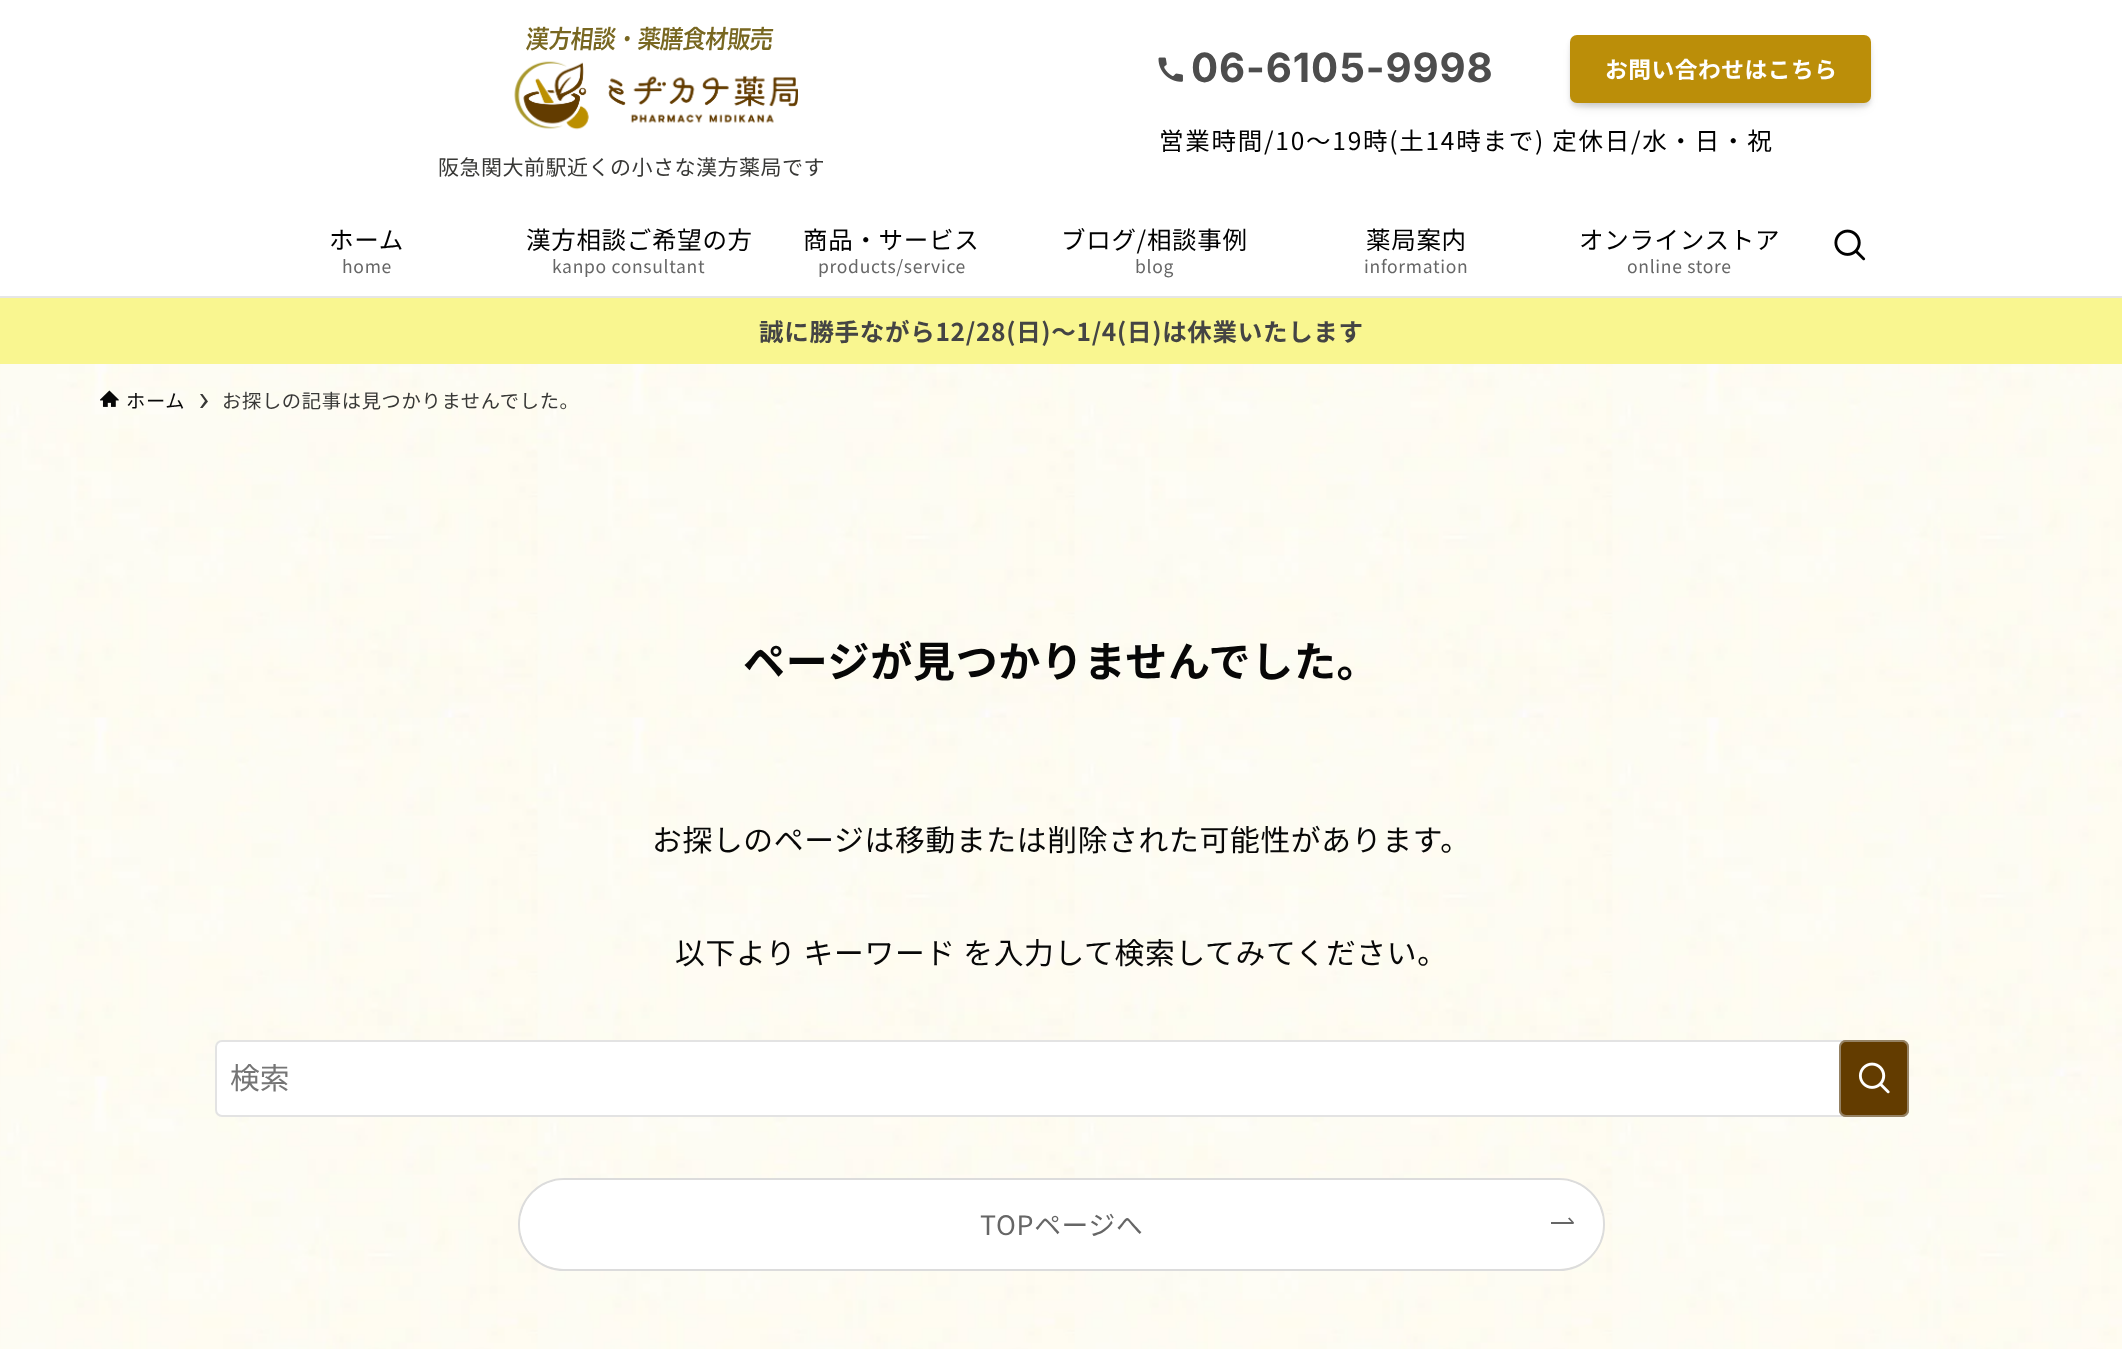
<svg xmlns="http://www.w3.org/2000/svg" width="2122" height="1349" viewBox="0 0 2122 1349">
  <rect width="100%" height="100%" fill="#fff"/>
  <image x="0" y="364" width="2122" height="985" href="img/1.png"/>
  <path d="M0 296h2122v2H0z" fill="#e6e6e6"/>
  <image x="1158" y="57" width="25" height="25" href="img/2.png"/>
  <path d="M1577 49h287v54H1577z" fill="#00000033" filter="blur(7px)"/>
  <rect x="1570" y="39" width="301" height="68" rx="7" fill="#0000001a" filter="blur(2px)"/>
  <rect x="1570" y="35" width="301" height="68" rx="7" fill="#bb8e09"/>
  <image x="514" y="26" width="284" height="104" href="img/3.png"/>
  <image x="1834" y="229" width="32" height="32" href="img/4.png"/>
  <path d="M0 298h2122v66H0z" fill="#f9f690"/>
  <image x="100" y="390" width="19" height="17" href="img/5.png"/>
  <path d="M202.5 394H200L205 401L200 408H202.5L208 401.5Z" fill="#383836"/>
  <rect x="215" y="1040" width="1694" height="77" rx="7" fill="#fff"/>
  <rect x="216" y="1041" width="1692" height="75" rx="6" fill="none" stroke="#c7c7c780" stroke-width="2"/>
  <rect x="1839" y="1040" width="70" height="77" rx="7" fill="#633c00"/>
  <rect x="1840" y="1041" width="68" height="75" rx="6" fill="none" stroke="#c7c7c780" stroke-width="2"/>
  <image x="1858" y="1062" width="32" height="32" href="img/6.png"/>
  <rect x="519" y="1179" width="1085" height="91" rx="45.5" fill="none" stroke="#dcdcdc" stroke-width="2"/>
  <rect x="520" y="1180" width="1083" height="89" rx="44.5" fill="#fff"/>
  <path d="M1573.5 1224H1551V1222H1571.5L1568 1218.5L1569.5 1217.5L1574 1222.5Z" fill="#666"/>
  <text x="1191" y="82" font-family="Inter" font-size="40.25" font-weight="bold" letter-spacing="0.9" fill="#4d4d4d">06-6105-9998</text>
  <text x="1605" y="78" font-family="Noto Sans JP" font-size="22.75" font-weight="bold" letter-spacing="0.5" fill="#fff">お問い合わせはこちら</text>
  <text x="1159" y="150" font-family="Noto Sans JP" font-size="24.5" letter-spacing="1.75" fill="#000">営業時間/10～19時(土14時まで) 定休日/水・日・祝</text>
  <text x="438" y="175" font-family="Noto Sans JP" font-size="21" letter-spacing="0.5" fill="#383836">阪急関大前駅近くの小さな漢方薬局です</text>
  <text x="329" y="249" font-family="Noto Sans JP" font-size="24.5" letter-spacing="0.7" fill="#000">ホーム</text>
  <text x="342" y="273" font-family="Noto Sans JP" font-size="17.5" letter-spacing="0.7" fill="#666">home</text>
  <text x="526" y="249" font-family="Noto Sans JP" font-size="24.5" letter-spacing="0.7" fill="#000">漢方相談ご希望の方</text>
  <text x="552" y="273" font-family="Noto Sans JP" font-size="17.5" letter-spacing="0.7" fill="#666">kanpo consultant</text>
  <text x="803" y="249" font-family="Noto Sans JP" font-size="24.5" letter-spacing="0.7" fill="#000">商品・サービス</text>
  <text x="818" y="273" font-family="Noto Sans JP" font-size="17.5" letter-spacing="0.7" fill="#666">products/service</text>
  <text x="1061" y="249" font-family="Noto Sans JP" font-size="24.5" letter-spacing="0.7" fill="#000">ブログ/相談事例</text>
  <text x="1135" y="273" font-family="Noto Sans JP" font-size="17.5" letter-spacing="0.7" fill="#666">blog</text>
  <text x="1366" y="249" font-family="Noto Sans JP" font-size="24.5" letter-spacing="0.7" fill="#000">薬局案内</text>
  <text x="1364" y="273" font-family="Noto Sans JP" font-size="17.5" letter-spacing="0.7" fill="#666">information</text>
  <text x="1579" y="249" font-family="Noto Sans JP" font-size="24.5" letter-spacing="0.7" fill="#000">オンラインストア</text>
  <text x="1627" y="273" font-family="Noto Sans JP" font-size="17.5" letter-spacing="0.7" fill="#666">online store</text>
  <text x="759" y="341" font-family="Noto Sans JP" font-size="24.5" font-weight="bold" letter-spacing="0.7" fill="#444">誠に勝手ながら12/28(日)～1/4(日)は休業いたします</text>
  <text x="126" y="408" font-family="Noto Sans JP" font-size="19.25" letter-spacing="0.7" fill="#070707">ホーム</text>
  <text x="222" y="408" font-family="Noto Sans JP" font-size="19.25" letter-spacing="0.7" fill="#383836">お探しの記事は見つかりませんでした。</text>
  <text x="743" y="677" font-family="Noto Sans JP" font-size="42" font-weight="bold" letter-spacing="0.7" fill="#070707">ページが見つかりませんでした。</text>
  <g font-family="Noto Sans JP" font-size="29.75" letter-spacing="0.7" fill="#070707">
    <text x="652" y="851">お探しのページは移動または削除された可能性があります。</text>
    <text x="675" y="964">以下より キーワード を入力して検索してみてください。</text>
  </g>
  <text x="230" y="1089" font-family="Noto Sans JP" font-size="29.75" fill="#757575">検索</text>
  <text x="980" y="1235" font-family="Noto Sans JP" font-size="26.75" letter-spacing="0.7" fill="#666">TOPページへ</text>
</svg>
